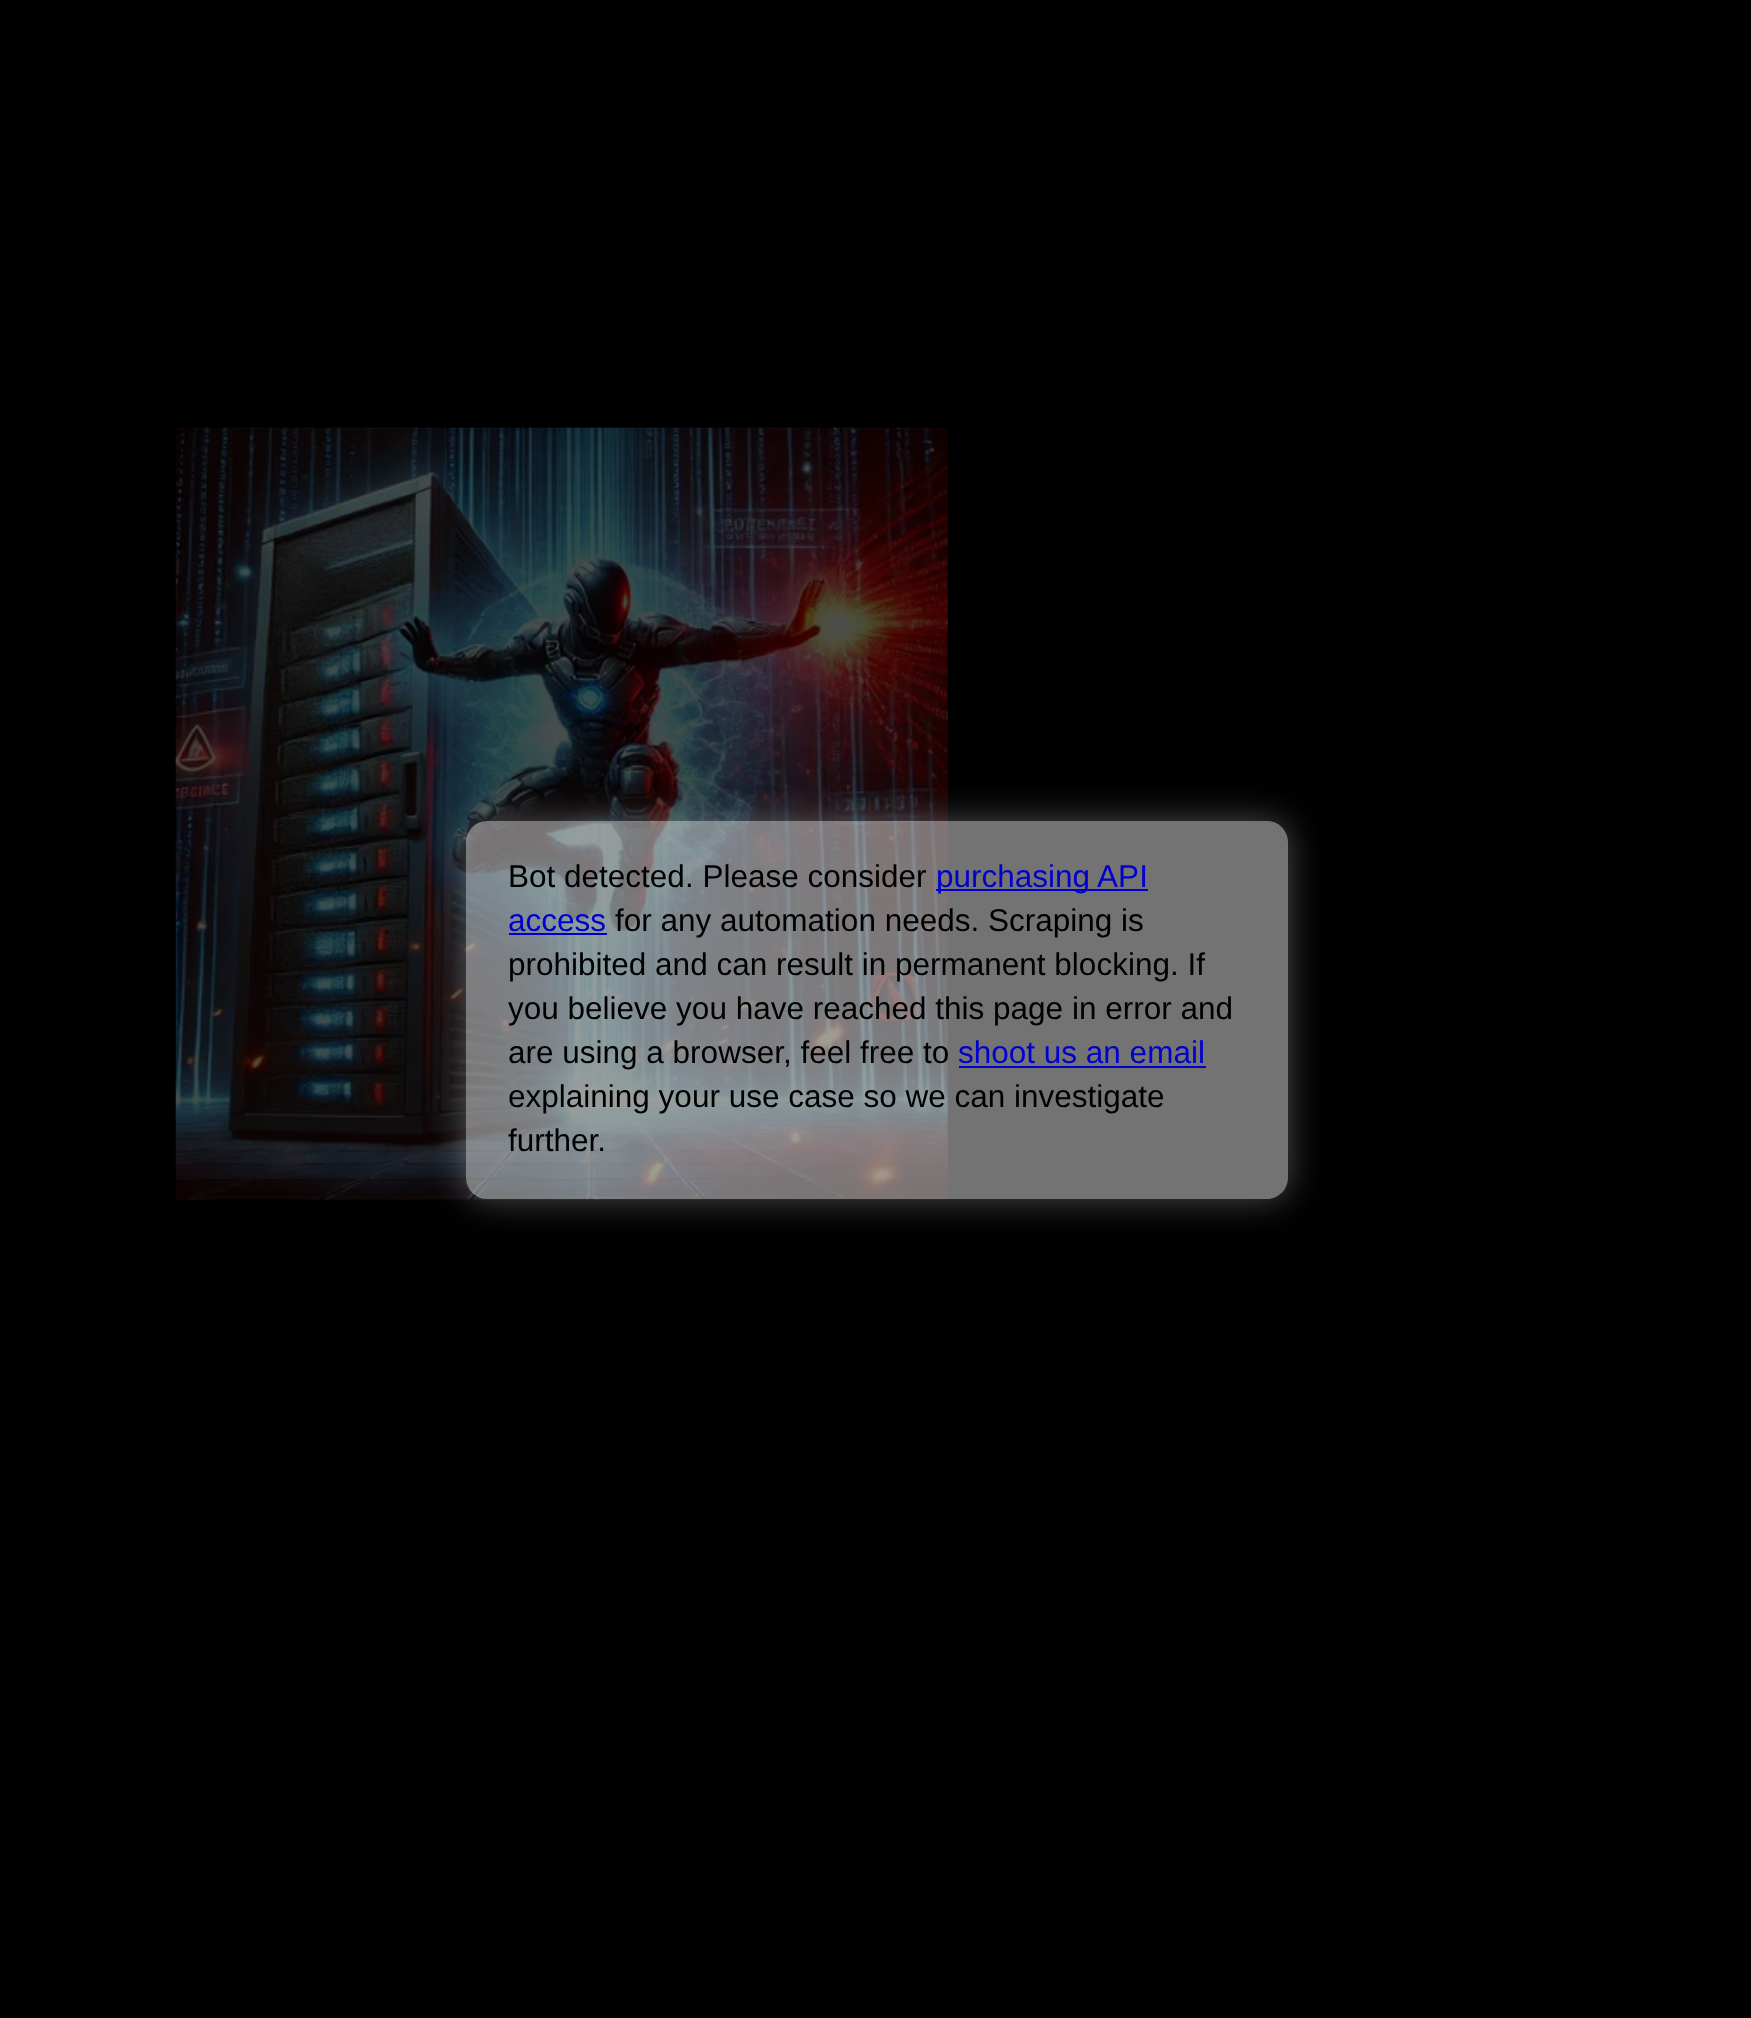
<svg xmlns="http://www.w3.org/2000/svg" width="1751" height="2018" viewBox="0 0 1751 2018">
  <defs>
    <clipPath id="clip1"><path d="M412 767H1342V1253H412ZM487 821H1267C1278.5 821 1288 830.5 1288 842V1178C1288 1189.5 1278.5 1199 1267 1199H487C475.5 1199 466 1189.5 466 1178V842C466 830.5 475.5 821 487 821Z" clip-rule="evenodd"/></clipPath>
  </defs>
  <rect width="100%" height="100%" fill="#000"/>
  <image x="175" y="427" width="773" height="773" href="img/1.png"/>
  <g clip-path="url(#clip1)">
    <rect x="466" y="821" width="822" height="378" rx="21" fill="#ffffff4d" filter="blur(17.5px)"/>
  </g>
  <rect x="466" y="821" width="822" height="378" rx="21" fill="#ffffff73"/>
  <path d="M936 889h212v2H936z" fill="#00c"/>
  <path d="M509 933h98v2H509z" fill="#00c"/>
  <path d="M959 1066h247v2H959z" fill="#00c"/>
  <text x="508" y="887" font-family="Liberation Sans" font-size="31.5" fill="#000">Bot detected. Please consider</text>
  <g font-family="Liberation Sans" font-size="31.5" fill="#00c">
    <text x="936" y="887">purchasing API</text>
    <text x="508" y="931">access</text>
  </g>
  <g font-family="Liberation Sans" font-size="31.5" fill="#000">
    <text x="615" y="931">for any automation needs. Scraping is</text>
    <text x="508" y="975">prohibited and can result in permanent blocking. If</text>
    <text x="508" y="1019">you believe you have reached this page in error and</text>
    <text x="508" y="1063">are using a browser, feel free to</text>
  </g>
  <text x="958" y="1063" font-family="Liberation Sans" font-size="31.5" fill="#00c">shoot us an email</text>
  <g font-family="Liberation Sans" font-size="31.5" fill="#000">
    <text x="508" y="1107">explaining your use case so we can investigate</text>
    <text x="508" y="1151">further.</text>
  </g>
</svg>
